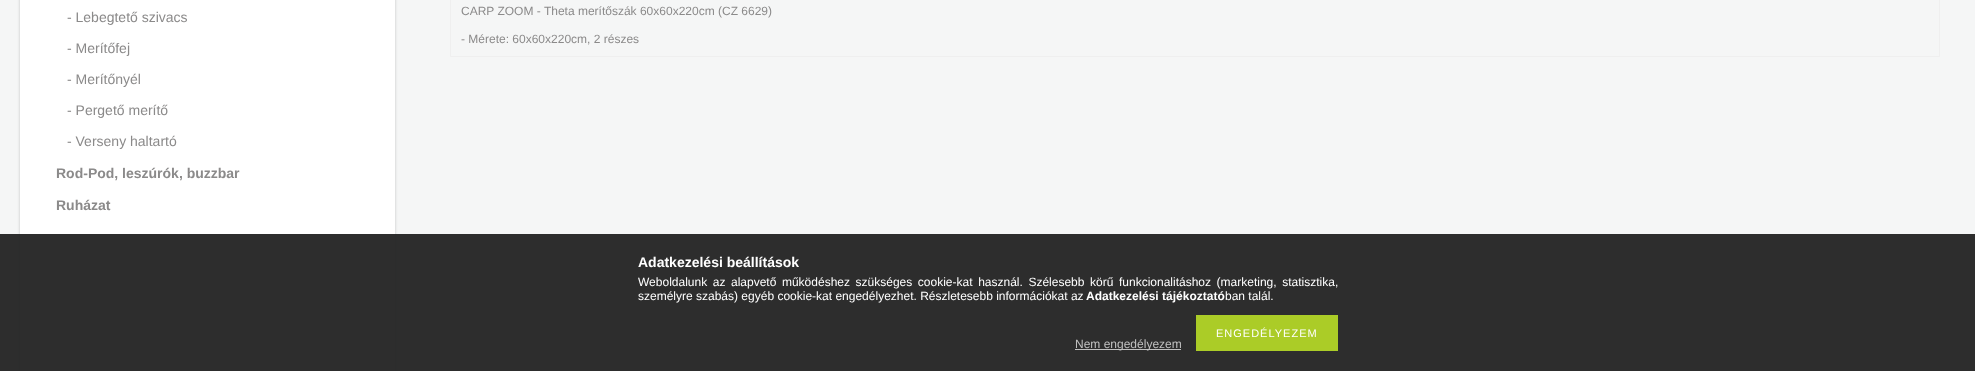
<svg xmlns="http://www.w3.org/2000/svg" width="1975" height="371" viewBox="0 0 1975 371">
  <rect width="100%" height="100%" fill="#f5f6f6"/>
  <path d="M20 -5h375v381H20z" fill="#00000033" filter="blur(1.5px)"/>
  <path d="M20 0h375v371H20z" fill="#fff"/>
  <path d="M450.5 -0.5h1489v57H450.5z" fill="none" stroke="#efefef"/>
  <path d="M0 234h1975v137H0z" fill="#222222f2"/>
  <path d="M1196 315h142v36H1196z" fill="#abcc27"/>
  <path d="M1075 349h106v1H1075z" fill="#c0c0c0"/>
  <g font-family="Liberation Sans" font-size="14" fill="#8b8a8a">
    <text x="67" y="22">- Lebegtető szivacs</text>
    <text x="67" y="53">- Merítőfej</text>
    <text x="67" y="84">- Merítőnyél</text>
    <text x="67" y="115">- Pergető merítő</text>
    <text x="67" y="146">- Verseny haltartó</text>
  </g>
  <g font-family="Liberation Sans" font-size="14" font-weight="bold" fill="#8b8a8a">
    <text x="56" y="178">Rod-Pod, leszúrók, buzzbar</text>
    <text x="56" y="210">Ruházat</text>
  </g>
  <g font-family="Liberation Sans" font-size="12" fill="#8b8a8a">
    <text x="461" y="15">CARP ZOOM - Theta merítőszák 60x60x220cm (CZ 6629)</text>
    <text x="461" y="43">- Mérete: 60x60x220cm, 2 részes</text>
  </g>
  <text x="638" y="267" font-family="Liberation Sans" font-size="14" font-weight="bold" fill="#fff">Adatkezelési beállítások</text>
  <g font-family="Liberation Sans" font-size="12" fill="#fff">
    <text x="638" y="286" word-spacing="2.25">Weboldalunk az alapvető működéshez szükséges cookie-kat használ. Szélesebb körű funkcionalitáshoz (marketing, statisztika,</text>
    <text x="638" y="300">személyre szabás) egyéb cookie-kat engedélyezhet. Részletesebb információkat az</text>
  </g>
  <text x="1086" y="300" font-family="Liberation Sans" font-size="12" font-weight="bold" fill="#fff">Adatkezelési tájékoztató</text>
  <text x="1225" y="300" font-family="Liberation Sans" font-size="12" fill="#fff">ban talál.</text>
  <text x="1216" y="337" font-family="Liberation Sans" font-size="11" letter-spacing="1" fill="#fff">ENGEDÉLYEZEM</text>
  <text x="1075" y="348" font-family="Liberation Sans" font-size="12" fill="#c0c0c0">Nem engedélyezem</text>
</svg>
